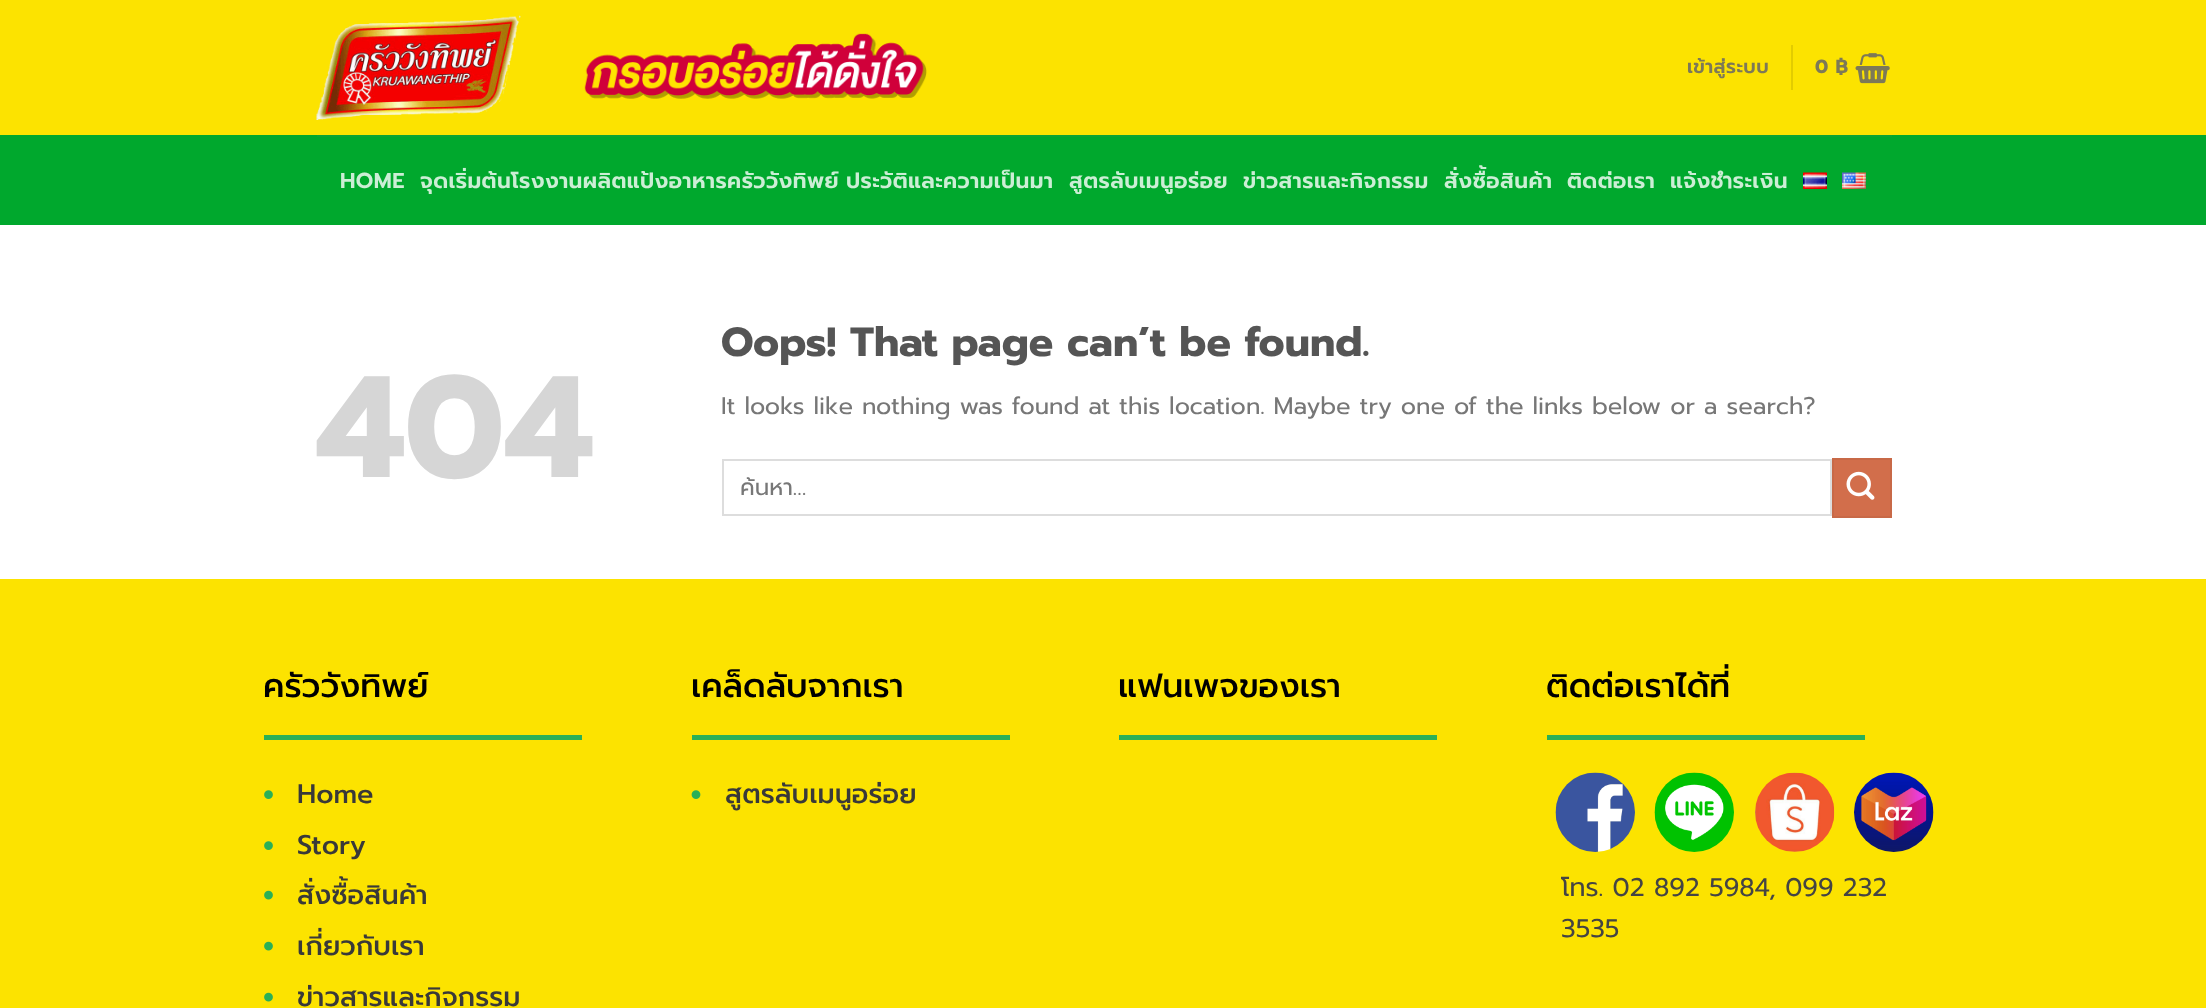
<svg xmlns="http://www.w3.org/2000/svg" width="2206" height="1008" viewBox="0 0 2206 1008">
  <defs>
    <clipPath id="clip1"><path d="M740 470h1066v36H740z"/></clipPath>
  </defs>
  <rect width="100%" height="100%" fill="#fff"/>
  <path d="M0 0h2206v135H0z" fill="#fce300"/>
  <image x="316" y="15" width="205" height="105" href="img/1.png"/>
  <image x="584" y="33" width="343" height="66" href="img/2.png"/>
  <path d="M1791 45h2v45H1791z" fill="#e3cc00"/>
  <image x="1855" y="53" width="35" height="31" href="img/3.png"/>
  <path d="M0 135h2206v90H0z" fill="#00a82d"/>
  <path d="M317 135h1575v2H317z" fill="#0ca334"/>
  <image x="1803" y="172" width="24" height="17" href="img/4.png"/>
  <image x="1842" y="172" width="24" height="17" href="img/5.png"/>
  <path d="M723 460h1108v55H723z" fill="none" stroke="#ddd" stroke-width="2"/>
  <path d="M1833 459h58v58H1833z" fill="#d26e4b" stroke="#c86947" stroke-width="2"/>
  <image x="1846" y="471" width="29" height="29" href="img/6.png"/>
  <path d="M0 579h2206v429H0z" fill="#fce300"/>
  <path d="M264 735h318v5H264z" fill="#2ab057"/>
  <image x="264" y="790" width="9" height="9" href="img/7.png"/>
  <image x="264" y="841" width="9" height="9" href="img/7.png"/>
  <image x="264" y="890" width="9" height="10" href="img/8.png"/>
  <image x="264" y="941" width="9" height="10" href="img/8.png"/>
  <image x="264" y="992" width="9" height="10" href="img/8.png"/>
  <path d="M692 735h318v5H692z" fill="#2ab057"/>
  <image x="691" y="790" width="10" height="9" href="img/9.png"/>
  <path d="M1119 735h318v5H1119z" fill="#2ab057"/>
  <path d="M1547 735h318v5H1547z" fill="#2ab057"/>
  <image x="1555" y="772" width="80" height="80" href="img/10.png"/>
  <image x="1654" y="772" width="80" height="80" href="img/11.png"/>
  <image x="1755" y="772" width="80" height="80" href="img/12.png"/>
  <image x="1854" y="772" width="80" height="80" href="img/13.png"/>
  <text x="1687" y="73" font-family="Prompt" font-size="19" font-weight="600" letter-spacing="0.4" fill="#7d7957">เข้าสู่ระบบ</text>
  <text x="1815" y="73" font-family="Prompt" font-size="19" font-weight="bold" letter-spacing="0.4" fill="#7d7957">0 ฿</text>
  <g font-family="Prompt" font-size="21.6" font-weight="600" letter-spacing="0.43" fill="#cceed5">
    <text x="340" y="188">HOME</text>
    <text x="420" y="188" word-spacing="-1">จุดเริ่มต้นโรงงานผลิตแป้งอาหารครัววังทิพย์ ประวัติและความเป็นมา</text>
    <text x="1069" y="188">สูตรลับเมนูอร่อย</text>
    <text x="1243" y="188">ข่าวสารและกิจกรรม</text>
    <text x="1444" y="188">สั่งซื้อสินค้า</text>
    <text x="1567" y="188">ติดต่อเรา</text>
    <text x="1670" y="188">แจ้งชำระเงิน</text>
  </g>
  <text x="316" y="477" font-family="Prompt" font-size="144" font-weight="bold" fill="#d6d6d6">404</text>
  <text x="721" y="356" font-family="Prompt" font-size="40.75" font-weight="bold" fill="#555">Oops! That page can’t be found.</text>
  <text x="721" y="414" font-family="Prompt" font-size="24" fill="#777">It looks like nothing was found at this location. Maybe try one of the links below or a search?</text>
  <g clip-path="url(#clip1)">
    <text x="740" y="495" font-family="Prompt" font-size="23" fill="#777">ค้นหา…</text>
  </g>
  <text x="263" y="697" font-family="Prompt" font-size="33" font-weight="500" fill="#000">ครัววังทิพย์</text>
  <g font-family="Prompt" font-size="27" font-weight="500" fill="#393939">
    <text x="297" y="803">Home</text>
    <text x="297" y="854">Story</text>
    <text x="297" y="904">สั่งซื้อสินค้า</text>
    <text x="297" y="955">เกี่ยวกับเรา</text>
    <text x="297" y="1006">ข่าวสารและกิจกรรม</text>
  </g>
  <text x="691" y="697" font-family="Prompt" font-size="33" font-weight="500" fill="#000">เคล็ดลับจากเรา</text>
  <text x="725" y="803" font-family="Prompt" font-size="27" font-weight="500" fill="#393939">สูตรลับเมนูอร่อย</text>
  <g font-family="Prompt" font-size="33" font-weight="500" fill="#000">
    <text x="1118" y="697">แฟนเพจของเรา</text>
    <text x="1546" y="697">ติดต่อเราได้ที่</text>
  </g>
  <g font-family="Prompt" font-size="25.5" fill="#444">
    <text x="1561" y="896">โทร. 02 892 5984, 099 232</text>
    <text x="1561" y="937">3535</text>
  </g>
</svg>
